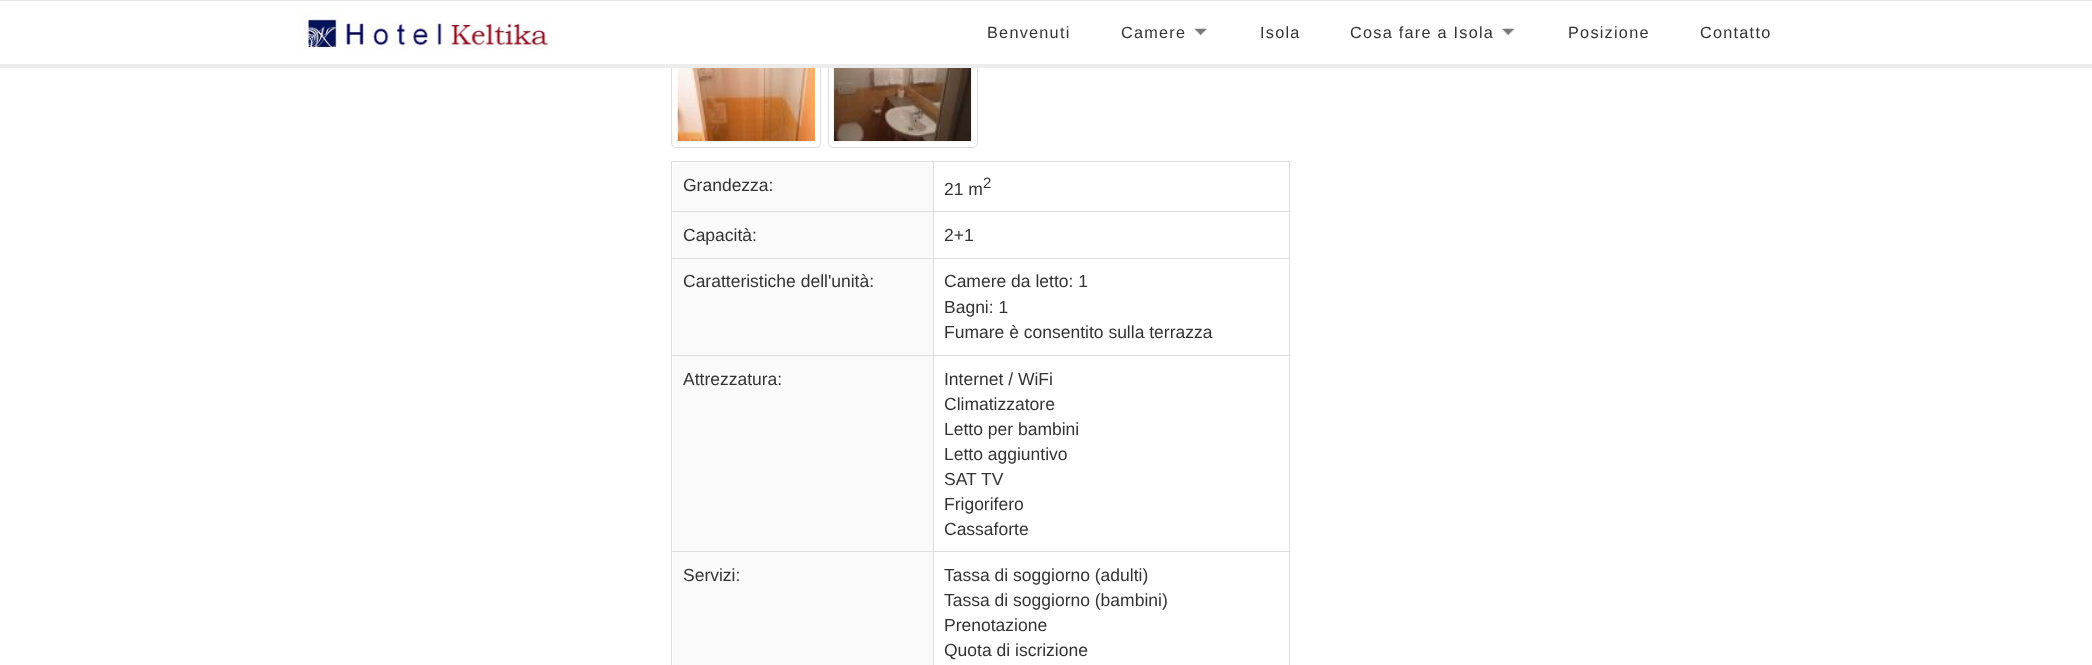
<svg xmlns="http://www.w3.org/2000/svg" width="2092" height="665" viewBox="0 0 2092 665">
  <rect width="100%" height="100%" fill="#fff"/>
  <rect x="671.5" y="41.5" width="149" height="106" rx="4.5" fill="none" stroke="#ddd"/>
  <rect x="828.5" y="41.5" width="149" height="106" rx="4.5" fill="none" stroke="#ddd"/>
  <path d="M671 41h307v23H671z" fill="#fff"/>
  <path d="M0 0h2092v1H0z" fill="#e5e5e5"/>
  <path d="M0 64h2092v4H0z" fill="#ececec"/>
  <image x="297" y="8" width="253" height="42" href="img/1.png"/>
  <image x="1194" y="28" width="13" height="8" href="img/2.png"/>
  <image x="1501" y="28" width="14" height="8" href="img/3.png"/>
  <image x="677" y="68" width="138" height="74" href="img/4.png"/>
  <image x="833" y="68" width="139" height="74" href="img/5.png"/>
  <path d="M673 163h260v48H673z" fill="#fafafa"/>
  <path d="M933 161h357v1H933z" fill="#ddd"/>
  <path d="M933 211h357v1H933z" fill="#ddd"/>
  <path d="M933 258h357v1H933z" fill="#ddd"/>
  <path d="M933 355h357v1H933z" fill="#ddd"/>
  <path d="M933 551h357v1H933z" fill="#ddd"/>
  <path d="M933 551h1v114H933z" fill="#ddd"/>
  <path d="M671 551h263v1H671z" fill="#ddd"/>
  <path d="M933 355h1v198H933z" fill="#ddd"/>
  <path d="M671 355h263v1H671z" fill="#ddd"/>
  <path d="M933 258h1v98H933z" fill="#ddd"/>
  <path d="M671 258h263v1H671z" fill="#ddd"/>
  <path d="M933 211h1v48H933z" fill="#ddd"/>
  <path d="M671 211h263v1H671z" fill="#ddd"/>
  <path d="M933 161h1v52H933z" fill="#ddd"/>
  <path d="M671 161h263v1H671z" fill="#ddd"/>
  <path d="M671 551h1v114H671z" fill="#ddd"/>
  <path d="M671 355h1v198H671z" fill="#ddd"/>
  <path d="M671 258h1v98H671z" fill="#ddd"/>
  <path d="M671 211h1v48H671z" fill="#ddd"/>
  <path d="M671 161h1v52H671z" fill="#ddd"/>
  <path d="M1289 551h1v114H1289z" fill="#ddd"/>
  <path d="M1289 355h1v198H1289z" fill="#ddd"/>
  <path d="M1289 258h1v98H1289z" fill="#ddd"/>
  <path d="M1289 211h1v48H1289z" fill="#ddd"/>
  <path d="M1289 161h1v52H1289z" fill="#ddd"/>
  <path d="M673 212h260v46H673z" fill="#fafafa"/>
  <path d="M673 259h260v96H673z" fill="#fafafa"/>
  <path d="M673 356h260v195H673z" fill="#fafafa"/>
  <path d="M673 552h260v113H673z" fill="#fafafa"/>
  <g font-family="Liberation Sans" font-size="16.25" letter-spacing="1.25" fill="#333">
    <text x="987" y="38">Benvenuti</text>
    <text x="1121" y="38">Camere</text>
    <text x="1260" y="38">Isola</text>
    <text x="1350" y="38">Cosa fare a Isola</text>
    <text x="1568" y="38">Posizione</text>
    <text x="1700" y="38">Contatto</text>
  </g>
  <g font-family="Liberation Sans" font-size="17.5" fill="#333">
    <text x="683" y="191">Grandezza:</text>
    <text x="944" y="195">21 m</text>
  </g>
  <text x="983" y="188" font-family="Liberation Sans" font-size="15" fill="#333">2</text>
  <g font-family="Liberation Sans" font-size="17.5" fill="#333">
    <text x="683" y="241">Capacità:</text>
    <text x="944" y="241">2+1</text>
    <text x="683" y="287">Caratteristiche dell'unità:</text>
    <text x="944" y="287">Camere da letto: 1</text>
    <text x="944" y="313">Bagni: 1</text>
    <text x="944" y="338">Fumare è consentito sulla terrazza</text>
    <text x="683" y="385">Attrezzatura:</text>
    <text x="944" y="385">Internet / WiFi</text>
    <text x="944" y="410">Climatizzatore</text>
    <text x="944" y="435">Letto per bambini</text>
    <text x="944" y="460">Letto aggiuntivo</text>
    <text x="944" y="485">SAT TV</text>
    <text x="944" y="510">Frigorifero</text>
    <text x="944" y="535">Cassaforte</text>
    <text x="683" y="581">Servizi:</text>
    <text x="944" y="581">Tassa di soggiorno (adulti)</text>
    <text x="944" y="606">Tassa di soggiorno (bambini)</text>
    <text x="944" y="631">Prenotazione</text>
    <text x="944" y="656">Quota di iscrizione</text>
  </g>
</svg>
